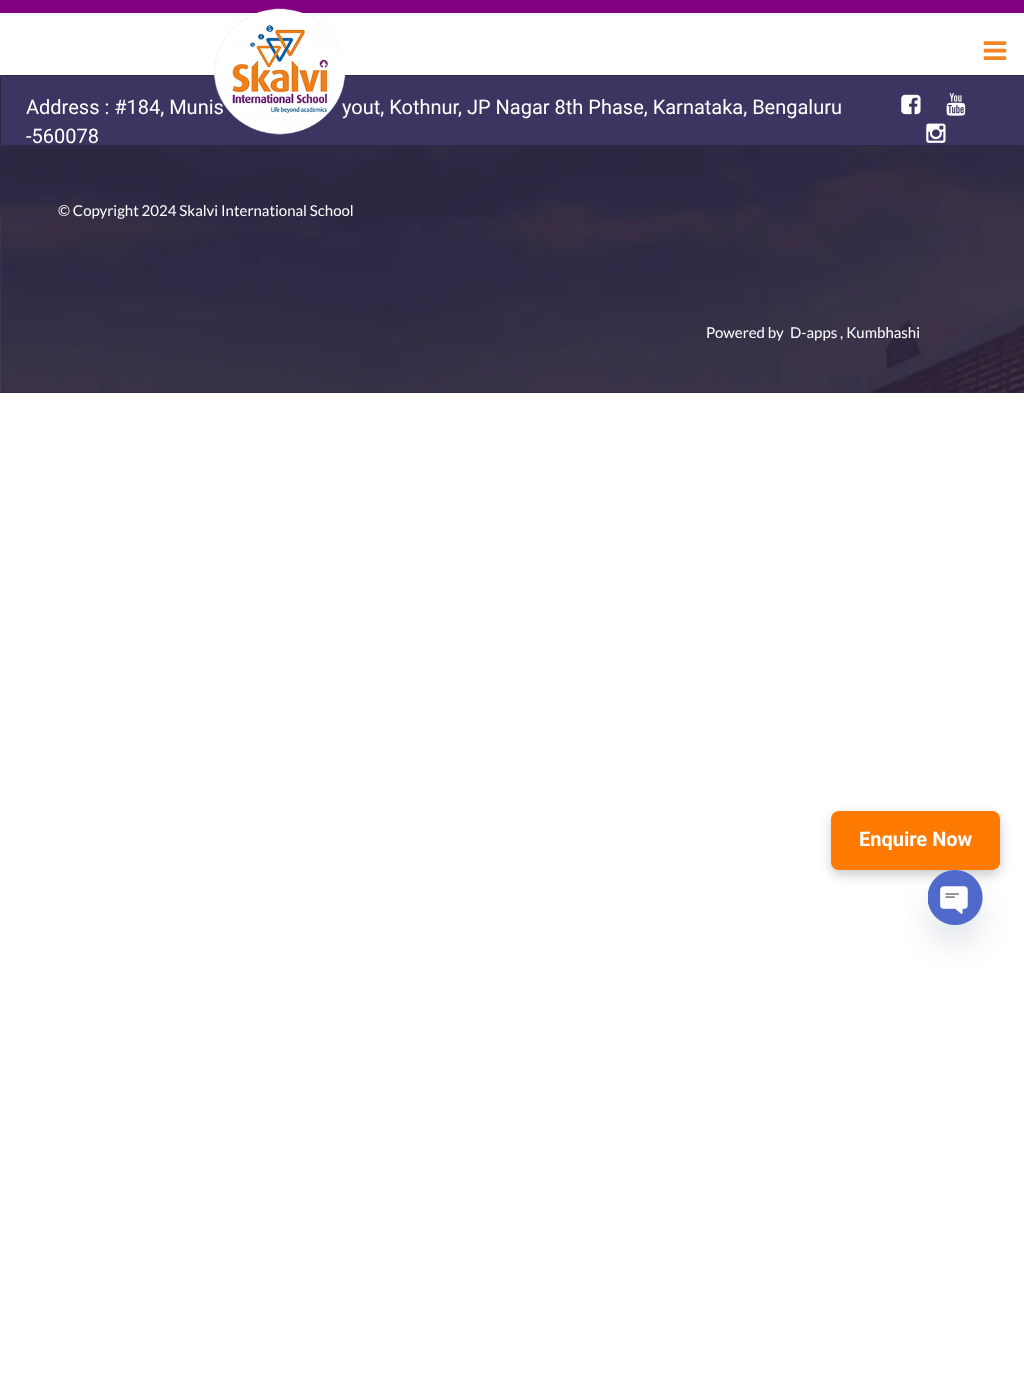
<svg xmlns="http://www.w3.org/2000/svg" width="1024" height="1400" viewBox="0 0 1024 1400">
  <rect width="100%" height="100%" fill="#fff"/>
  <path d="M0 0h1024v13H0z" fill="#800080"/>
  <image x="983" y="41" width="24" height="19" href="img/2.png"/>
  <path d="M0 392h1024v1H0z" fill="#2d2944"/>
  <image x="0" y="146" width="1024" height="247" href="img/3.png"/>
  <path d="M0.5 75.5h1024v70H0.5z" fill="#3c3562" stroke="#2d2944"/>
  <image x="901" y="94" width="20" height="21" href="img/4.png"/>
  <image x="946" y="93" width="20" height="23" href="img/5.png"/>
  <image x="926" y="123" width="20" height="20" href="img/6.png"/>
  <rect x="831" y="816" width="169" height="59" rx="8" fill="#00000033" filter="blur(6px)"/>
  <rect x="831" y="811" width="169" height="59" rx="8" fill="#ff7a00"/>
  <rect x="928" y="890" width="55" height="55" rx="27.5" fill="#49687e29" filter="blur(15px)"/>
  <circle cx="955.5" cy="897.5" r="27.5" fill="#e3dfdf"/>
  <image x="928" y="870" width="55" height="55" href="img/7.png"/>
  <g font-family="Roboto" font-size="20" fill="#fff">
    <text x="26" y="114">Address : #184, Munis</text>
    <text x="342" y="114">yout, Kothnur, JP Nagar 8th Phase, Karnataka, Bengaluru</text>
  </g>
  <image x="213" y="8" width="133" height="127" href="img/1.png"/>
  <text x="26" y="143" font-family="Roboto" font-size="20" fill="#fff">-560078</text>
  <g font-family="Lato" font-size="15" fill="#fff">
    <text x="58" y="216">© Copyright 2024 Skalvi International School</text>
    <text x="706" y="338">Powered by</text>
    <text x="790" y="338">D-apps , Kumbhashi</text>
  </g>
  <text x="859" y="846" font-family="Roboto" font-size="20" font-weight="bold" fill="#fff">Enquire Now</text>
</svg>
